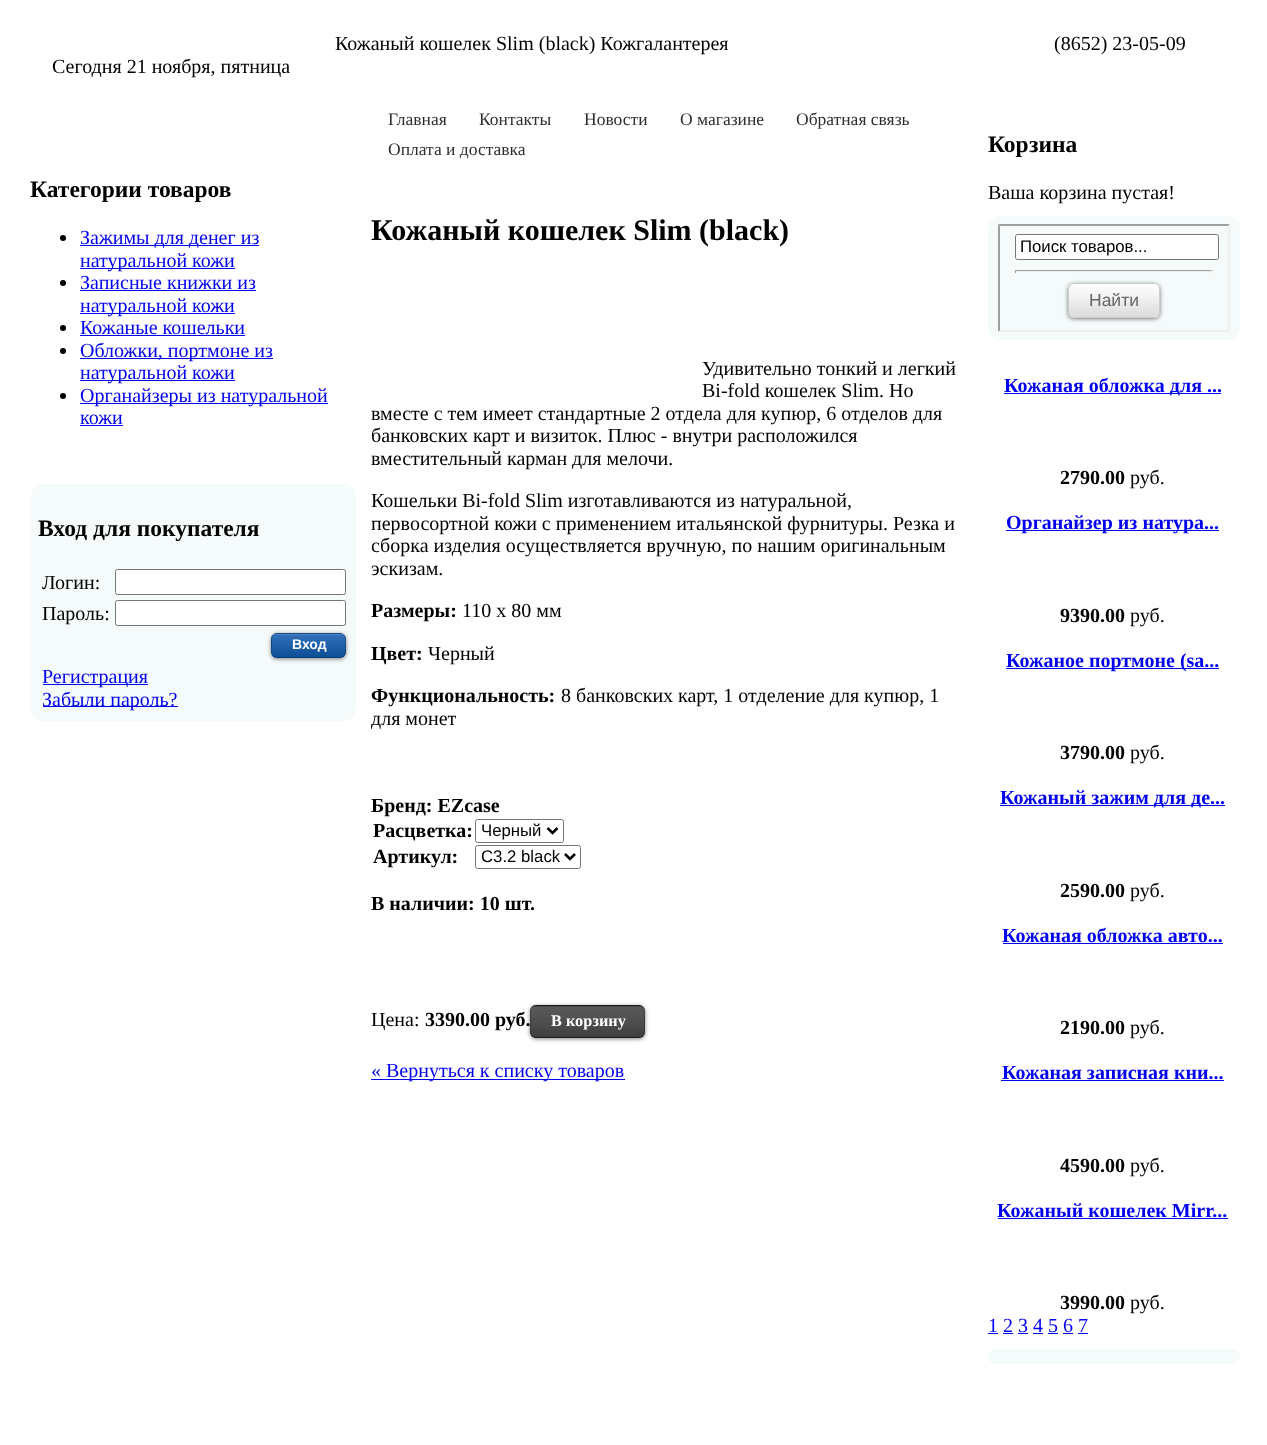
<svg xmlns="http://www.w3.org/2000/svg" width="1267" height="1445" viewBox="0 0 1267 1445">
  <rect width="100%" height="100%" fill="#fff"/>
  <circle cx="63" cy="238" r="3" fill="#000"/>
  <path d="M80 245h179v1H80z" fill="#00e"/>
  <path d="M80 268h155v1H80z" fill="#00e"/>
  <circle cx="63" cy="283" r="3" fill="#000"/>
  <path d="M80 290h176v1H80z" fill="#00e"/>
  <path d="M80 313h155v1H80z" fill="#00e"/>
  <circle cx="63" cy="328" r="3" fill="#000"/>
  <path d="M80 335h165v1H80z" fill="#00e"/>
  <circle cx="63" cy="351" r="3" fill="#000"/>
  <path d="M80 358h193v1H80z" fill="#00e"/>
  <path d="M80 380h155v1H80z" fill="#00e"/>
  <circle cx="63" cy="396" r="3" fill="#000"/>
  <path d="M80 403h248v1H80z" fill="#00e"/>
  <path d="M80 425h43v1H80z" fill="#00e"/>
  <rect x="31" y="484" width="325" height="237" rx="13" fill="#f5fafa"/>
  <rect x="115.5" y="569.5" width="230" height="25" rx="2" fill="#fff" stroke="#767676"/>
  <rect x="115.5" y="600.5" width="230" height="25" rx="2" fill="#fff" stroke="#767676"/>
  <rect x="271" y="634" width="75" height="25" rx="6" fill="#00000080" filter="blur(2px)"/>
  <rect x="271" y="633" width="75" height="25" rx="6" fill="#0e59ae"/>
  <image x="271" y="633" width="75" height="25" href="img/1.png"/>
  <rect x="271.5" y="633.5" width="74" height="24" rx="5.5" fill="none" stroke="#00000040"/>
  <path d="M43 684h105v1H43z" fill="#00e"/>
  <path d="M43 706h135v1H43z" fill="#00e"/>
  <rect x="475.5" y="819.5" width="88" height="23" rx="2" fill="none" stroke="#767676"/>
  <path d="M547.5 828L552.5 833L557.5 828" fill="none" stroke="#000" stroke-width="2.5"/>
  <rect x="475.5" y="845.5" width="105" height="23" rx="2" fill="none" stroke="#767676"/>
  <path d="M565 854L570 859L575 854" fill="none" stroke="#000" stroke-width="2.5"/>
  <rect x="530" y="1006" width="115" height="33" rx="6" fill="#00000080" filter="blur(2px)"/>
  <rect x="530" y="1005" width="115" height="33" rx="6" fill="#222"/>
  <image x="530" y="1006" width="115" height="32" href="img/2.png"/>
  <rect x="530.5" y="1005.5" width="114" height="32" rx="5.5" fill="none" stroke="#00000040"/>
  <path d="M371 1079h254v1H371z" fill="#00e"/>
  <rect x="988" y="216" width="252" height="124" rx="13" fill="#f5fafa"/>
  <path d="M998 224H1230L1228 226H1000Z" fill="#9f9f9f"/>
  <path d="M1230 224V332L1228 330V226Z" fill="#efefef"/>
  <path d="M1230 332H998L1000 330H1228Z" fill="#efefef"/>
  <path d="M998 332V224L1000 226V330Z" fill="#9f9f9f"/>
  <rect x="1015.5" y="234.5" width="203" height="25" rx="2" fill="#fff" stroke="#767676"/>
  <path d="M1015 270h198v1H1015z" fill="#9f9f9f"/>
  <path d="M1211 270h1v3H1211z" fill="#eee"/>
  <path d="M1015 271h198v1H1015z" fill="#eee"/>
  <path d="M1015 270h1v3H1015z" fill="#9f9f9f"/>
  <rect x="1068" y="284" width="92" height="35" rx="6" fill="#00000080" filter="blur(2px)"/>
  <rect x="1068" y="283" width="92" height="35" rx="6" fill="#fff"/>
  <image x="1067" y="287" width="93" height="31" href="img/3.png"/>
  <rect x="1068.5" y="283.5" width="91" height="34" rx="5.5" fill="none" stroke="#ccc"/>
  <path d="M1004 393h217v1H1004z" fill="#00e"/>
  <path d="M1006 530h213v1H1006z" fill="#00e"/>
  <path d="M1006 668h213v1H1006z" fill="#00e"/>
  <path d="M1000 805h225v1H1000z" fill="#00e"/>
  <path d="M1003 943h220v1H1003z" fill="#00e"/>
  <path d="M1001 1080h223v1H1001z" fill="#00e"/>
  <path d="M998 1218h230v1H998z" fill="#00e"/>
  <path d="M988 1333h10v1H988z" fill="#00e"/>
  <path d="M1003 1333h10v1H1003z" fill="#00e"/>
  <path d="M1018 1333h10v1H1018z" fill="#00e"/>
  <path d="M1033 1333h10v1H1033z" fill="#00e"/>
  <path d="M1048 1333h10v1H1048z" fill="#00e"/>
  <path d="M1063 1333h10v1H1063z" fill="#00e"/>
  <path d="M1078 1333h10v1H1078z" fill="#00e"/>
  <rect x="988" y="1349" width="252" height="15" rx="7.5" fill="#f5fafa"/>
  <g font-family="Liberation Serif" font-size="20" fill="#000">
    <text x="335" y="50">Кожаный кошелек Slim (black) Кожгалантерея</text>
    <text x="1054" y="50">(8652) 23-05-09</text>
    <text x="52" y="73">Сегодня 21 ноября, пятница</text>
  </g>
  <text x="30" y="197" font-family="Liberation Serif" font-size="23.5" font-weight="bold" fill="#000">Категории товаров</text>
  <g font-family="Liberation Serif" font-size="20" fill="#00e">
    <text x="80" y="244">Зажимы для денег из</text>
    <text x="80" y="267">натуральной кожи</text>
    <text x="80" y="289">Записные книжки из</text>
    <text x="80" y="312">натуральной кожи</text>
    <text x="80" y="334">Кожаные кошельки</text>
    <text x="80" y="357">Обложки, портмоне из</text>
    <text x="80" y="379">натуральной кожи</text>
    <text x="80" y="402">Органайзеры из натуральной</text>
    <text x="80" y="424">кожи</text>
  </g>
  <text x="38" y="536" font-family="Liberation Serif" font-size="23.5" font-weight="bold" fill="#000">Вход для покупателя</text>
  <g font-family="Liberation Serif" font-size="20" fill="#000">
    <text x="42" y="589">Логин:</text>
    <text x="42" y="620">Пароль:</text>
  </g>
  <text x="292" y="649" font-family="Liberation Sans" font-size="14" font-weight="bold" fill="#fff">Вход</text>
  <g font-family="Liberation Serif" font-size="20" fill="#00e">
    <text x="42" y="683">Регистрация</text>
    <text x="42" y="706">Забыли пароль?</text>
  </g>
  <g font-family="Liberation Serif" font-size="17.5" fill="#2e2e2e">
    <text x="388" y="125">Главная</text>
    <text x="479" y="125">Контакты</text>
    <text x="584" y="125">Новости</text>
    <text x="680" y="125">О магазине</text>
    <text x="796" y="125">Обратная связь</text>
    <text x="388" y="155">Оплата и доставка</text>
  </g>
  <text x="371" y="240" font-family="Liberation Serif" font-size="30" font-weight="bold" fill="#000">Кожаный кошелек Slim (black)</text>
  <g font-family="Liberation Serif" font-size="20" fill="#000">
    <text x="702" y="375">Удивительно тонкий и легкий</text>
    <text x="702" y="397">Bi-fold кошелек Slim. Но</text>
    <text x="371" y="420">вместе с тем имеет стандартные 2 отдела для купюр, 6 отделов для</text>
    <text x="371" y="442">банковских карт и визиток. Плюс - внутри расположился</text>
    <text x="371" y="465">вместительный карман для мелочи.</text>
    <text x="371" y="507">Кошельки Bi-fold Slim изготавливаются из натуральной,</text>
    <text x="371" y="530">первосортной кожи с применением итальянской фурнитуры. Резка и</text>
    <text x="371" y="552">сборка изделия осуществляется вручную, по нашим оригинальным</text>
    <text x="371" y="575">эскизам.</text>
  </g>
  <text x="371" y="617" font-family="Liberation Serif" font-size="20" font-weight="bold" fill="#000">Размеры:</text>
  <text x="462" y="617" font-family="Liberation Serif" font-size="20" fill="#000">110 x 80 мм</text>
  <text x="371" y="660" font-family="Liberation Serif" font-size="20" font-weight="bold" fill="#000">Цвет:</text>
  <text x="428" y="660" font-family="Liberation Serif" font-size="20" fill="#000">Черный</text>
  <text x="371" y="702" font-family="Liberation Serif" font-size="20" font-weight="bold" fill="#000">Функциональность:</text>
  <g font-family="Liberation Serif" font-size="20" fill="#000">
    <text x="561" y="702">8 банковских карт, 1 отделение для купюр, 1</text>
    <text x="371" y="725">для монет</text>
  </g>
  <g font-family="Liberation Serif" font-size="20" font-weight="bold" fill="#000">
    <text x="371" y="812">Бренд: EZcase</text>
    <text x="373" y="837">Расцветка:</text>
  </g>
  <text x="481" y="836" font-family="Liberation Sans" font-size="16.75" fill="#000">Черный</text>
  <text x="373" y="863" font-family="Liberation Serif" font-size="20" font-weight="bold" fill="#000">Артикул:</text>
  <text x="481" y="862" font-family="Liberation Sans" font-size="16.75" fill="#000">C3.2 black</text>
  <text x="371" y="910" font-family="Liberation Serif" font-size="20" font-weight="bold" fill="#000">В наличии: 10 шт.</text>
  <text x="371" y="1026" font-family="Liberation Serif" font-size="20" fill="#000">Цена:</text>
  <text x="425" y="1026" font-family="Liberation Serif" font-size="20" font-weight="bold" fill="#000">3390.00 руб.</text>
  <text x="551" y="1026" font-family="Liberation Serif" font-size="16.25" font-weight="bold" fill="#fff">В корзину</text>
  <text x="371" y="1077" font-family="Liberation Serif" font-size="20" fill="#00e">« Вернуться к списку товаров</text>
  <text x="988" y="152" font-family="Liberation Serif" font-size="23.5" font-weight="bold" fill="#000">Корзина</text>
  <text x="988" y="199" font-family="Liberation Serif" font-size="20" fill="#000">Ваша корзина пустая!</text>
  <text x="1020" y="252" font-family="Liberation Sans" font-size="16.75" fill="#000">Поиск товаров...</text>
  <text x="1089" y="306" font-family="Liberation Sans" font-size="17.5" fill="#666">Найти</text>
  <text x="1004" y="392" font-family="Liberation Serif" font-size="20" font-weight="bold" fill="#00e">Кожаная обложка для ...</text>
  <text x="1060" y="484" font-family="Liberation Serif" font-size="20" font-weight="bold" fill="#000">2790.00</text>
  <text x="1130" y="484" font-family="Liberation Serif" font-size="20" fill="#000">руб.</text>
  <text x="1006" y="529" font-family="Liberation Serif" font-size="20" font-weight="bold" fill="#00e">Органайзер из натура...</text>
  <text x="1060" y="622" font-family="Liberation Serif" font-size="20" font-weight="bold" fill="#000">9390.00</text>
  <text x="1130" y="622" font-family="Liberation Serif" font-size="20" fill="#000">руб.</text>
  <text x="1006" y="667" font-family="Liberation Serif" font-size="20" font-weight="bold" fill="#00e">Кожаное портмоне (sa...</text>
  <text x="1060" y="759" font-family="Liberation Serif" font-size="20" font-weight="bold" fill="#000">3790.00</text>
  <text x="1130" y="759" font-family="Liberation Serif" font-size="20" fill="#000">руб.</text>
  <text x="1000" y="804" font-family="Liberation Serif" font-size="20" font-weight="bold" fill="#00e">Кожаный зажим для де...</text>
  <text x="1060" y="897" font-family="Liberation Serif" font-size="20" font-weight="bold" fill="#000">2590.00</text>
  <text x="1130" y="897" font-family="Liberation Serif" font-size="20" fill="#000">руб.</text>
  <text x="1002" y="942" font-family="Liberation Serif" font-size="20" font-weight="bold" fill="#00e">Кожаная обложка авто...</text>
  <text x="1060" y="1034" font-family="Liberation Serif" font-size="20" font-weight="bold" fill="#000">2190.00</text>
  <text x="1130" y="1034" font-family="Liberation Serif" font-size="20" fill="#000">руб.</text>
  <text x="1002" y="1079" font-family="Liberation Serif" font-size="20" font-weight="bold" fill="#00e">Кожаная записная кни...</text>
  <text x="1060" y="1172" font-family="Liberation Serif" font-size="20" font-weight="bold" fill="#000">4590.00</text>
  <text x="1130" y="1172" font-family="Liberation Serif" font-size="20" fill="#000">руб.</text>
  <text x="997" y="1217" font-family="Liberation Serif" font-size="20" font-weight="bold" fill="#00e">Кожаный кошелек Mirr...</text>
  <text x="1060" y="1309" font-family="Liberation Serif" font-size="20" font-weight="bold" fill="#000">3990.00</text>
  <text x="1130" y="1309" font-family="Liberation Serif" font-size="20" fill="#000">руб.</text>
  <text x="988" y="1332" font-family="Liberation Serif" font-size="20" fill="#00e">1 2 3 4 5 6 7</text>
</svg>
